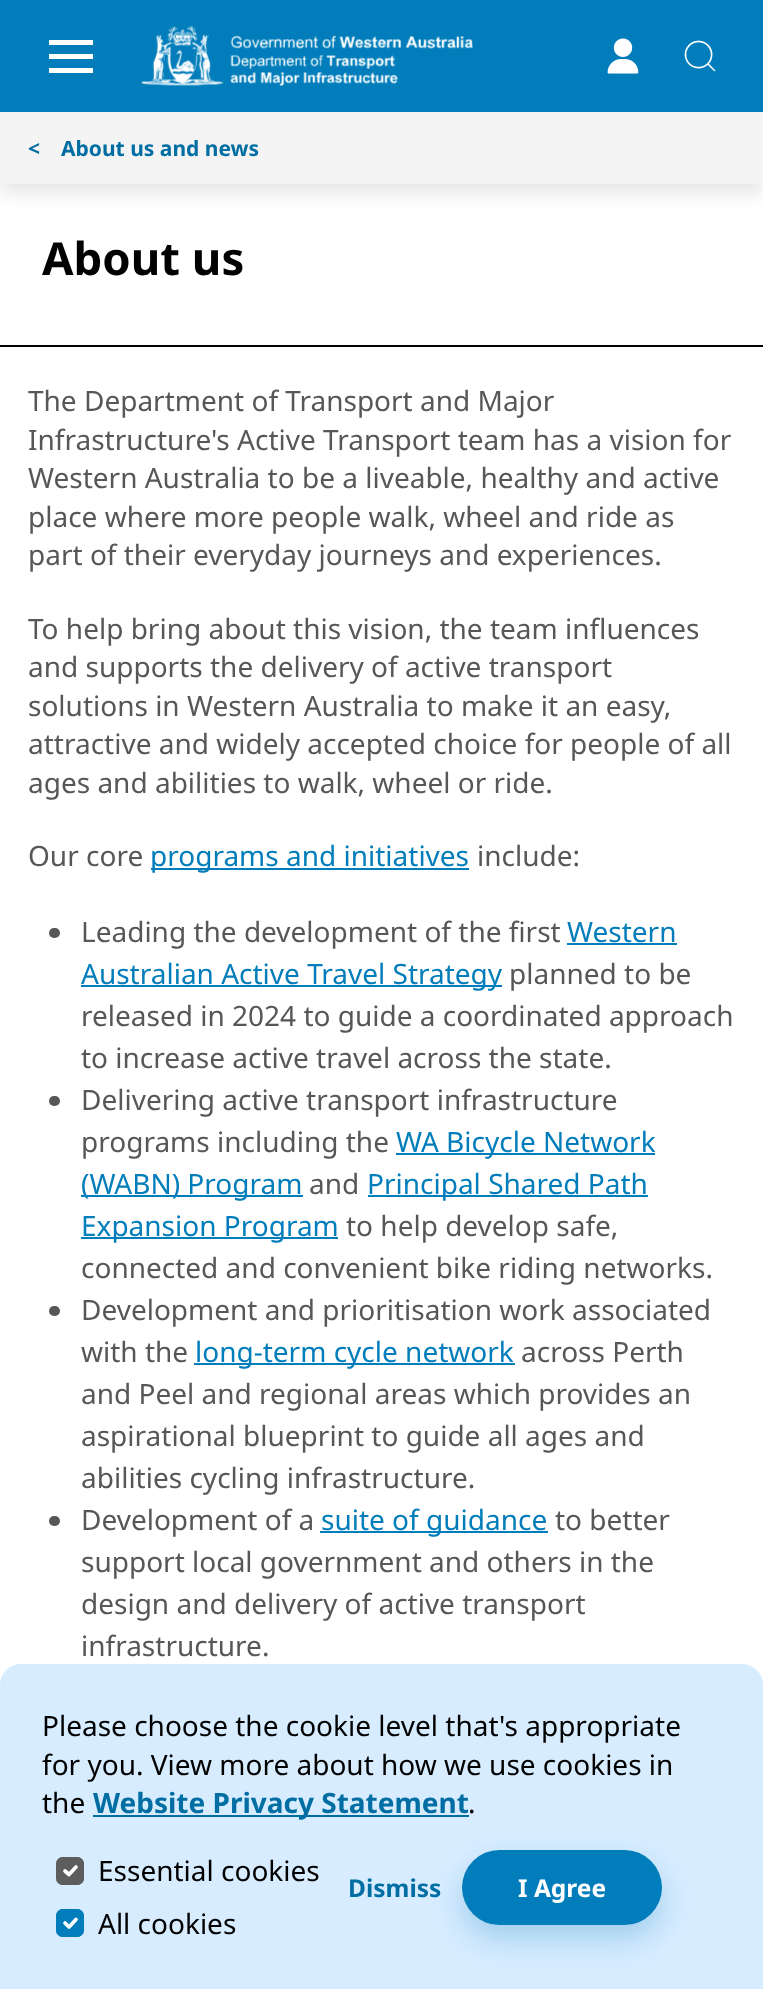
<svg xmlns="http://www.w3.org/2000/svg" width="763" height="1989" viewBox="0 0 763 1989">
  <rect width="100%" height="100%" fill="#fff"/>
  <path d="M0 121h763v72H0z" fill="#0000001a" filter="blur(9px)"/>
  <path d="M0 0h763v112H0z" fill="#007dba"/>
  <path d="M49 40h44v5H49z" fill="#fff"/>
  <path d="M49 54h44v5H49z" fill="#fff"/>
  <path d="M49 68h44v5H49z" fill="#fff"/>
  <image x="141" y="26" width="332" height="60" href="img/1.png"/>
  <image x="607" y="38" width="32" height="36" href="img/2.png"/>
  <image x="684" y="40" width="32" height="32" href="img/3.png"/>
  <path d="M0 112h763v72H0z" fill="#f4f4f4"/>
  <path d="M0 345h763v2H0z" fill="#010101"/>
  <path d="M151 868h318v2H151z" fill="#007dba"/>
  <rect x="49" y="928" width="11" height="10" rx="5" fill="#575757"/>
  <path d="M567 943h110v2H567z" fill="#007dba"/>
  <path d="M81 985h421v2H81z" fill="#007dba"/>
  <rect x="49" y="1096" width="11" height="10" rx="5" fill="#575757"/>
  <path d="M396 1153h259v2H396z" fill="#007dba"/>
  <path d="M81 1195h222v2H81z" fill="#007dba"/>
  <path d="M368 1195h280v2H368z" fill="#007dba"/>
  <path d="M81 1237h257v2H81z" fill="#007dba"/>
  <rect x="49" y="1306" width="11" height="10" rx="5" fill="#575757"/>
  <path d="M194 1363h321v2H194z" fill="#007dba"/>
  <rect x="49" y="1516" width="11" height="10" rx="5" fill="#575757"/>
  <path d="M320 1531h228v2H320z" fill="#007dba"/>
  <path d="M21 1664H742C753.5 1664 763 1673.5 763 1685V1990H0V1685C0 1673.5 9.5 1664 21 1664Z" fill="#d7ecff"/>
  <path d="M93 1815h376v2H93z" fill="#006ea3"/>
  <rect x="56" y="1857" width="28" height="28" rx="7" fill="#5d5d5d"/>
  <path d="M65 1871L69 1874.5L76 1867" fill="none" stroke="#fff" stroke-width="3.7" stroke-linecap="round" stroke-linejoin="round"/>
  <rect x="57" y="1858" width="26" height="26" rx="6" fill="none" stroke="#5d5d5d" stroke-width="2"/>
  <rect x="56" y="1909" width="28" height="28" rx="7" fill="#007dba"/>
  <path d="M65 1923L69 1927L76 1919.5" fill="none" stroke="#fff" stroke-width="3.7" stroke-linecap="round" stroke-linejoin="round"/>
  <rect x="57" y="1910" width="26" height="26" rx="6" fill="none" stroke="#007dba" stroke-width="2"/>
  <rect x="462" y="1864" width="200" height="75" rx="37.5" fill="#007dba40" filter="blur(14px)"/>
  <rect x="462" y="1850" width="200" height="75" rx="37.5" fill="#007dba"/>
  <g font-family="Noto Sans" font-size="21" font-weight="bold" fill="#006ea3">
    <text x="28" y="156">&lt;</text>
    <text x="61" y="156">About us and news</text>
  </g>
  <text x="42" y="275" font-family="Noto Sans" font-size="45.5" font-weight="bold" fill="#010101">About us</text>
  <g font-family="Noto Sans" font-size="28" fill="#575757">
    <text x="28" y="411">The Department of Transport and Major</text>
    <text x="28" y="450">Infrastructure's Active Transport team has a vision for</text>
    <text x="28" y="488">Western Australia to be a liveable, healthy and active</text>
    <text x="28" y="527">place where more people walk, wheel and ride as</text>
    <text x="28" y="565">part of their everyday journeys and experiences.</text>
    <text x="28" y="639">To help bring about this vision, the team influences</text>
    <text x="28" y="677">and supports the delivery of active transport</text>
    <text x="28" y="716">solutions in Western Australia to make it an easy,</text>
    <text x="28" y="754">attractive and widely accepted choice for people of all</text>
    <text x="28" y="793">ages and abilities to walk, wheel or ride.</text>
    <text x="28" y="866">Our core</text>
  </g>
  <text x="150" y="866" font-family="Noto Sans" font-size="28" fill="#007dba">programs and initiatives</text>
  <g font-family="Noto Sans" font-size="28" fill="#575757">
    <text x="477" y="866">include:</text>
    <text x="81" y="942">Leading the development of the first</text>
  </g>
  <g font-family="Noto Sans" font-size="28" fill="#007dba">
    <text x="567" y="942">Western</text>
    <text x="81" y="984">Australian Active Travel Strategy</text>
  </g>
  <g font-family="Noto Sans" font-size="28" fill="#575757">
    <text x="509" y="984">planned to be</text>
    <text x="81" y="1026">released in 2024 to guide a coordinated approach</text>
    <text x="81" y="1068">to increase active travel across the state.</text>
    <text x="81" y="1110">Delivering active transport infrastructure</text>
    <text x="81" y="1152">programs including the</text>
  </g>
  <g font-family="Noto Sans" font-size="28" fill="#007dba">
    <text x="396" y="1152">WA Bicycle Network</text>
    <text x="81" y="1194">(WABN) Program</text>
  </g>
  <text x="309" y="1194" font-family="Noto Sans" font-size="28" fill="#575757">and</text>
  <g font-family="Noto Sans" font-size="28" fill="#007dba">
    <text x="367" y="1194">Principal Shared Path</text>
    <text x="81" y="1236">Expansion Program</text>
  </g>
  <g font-family="Noto Sans" font-size="28" fill="#575757">
    <text x="346" y="1236">to help develop safe,</text>
    <text x="81" y="1278">connected and convenient bike riding networks.</text>
    <text x="81" y="1320">Development and prioritisation work associated</text>
    <text x="81" y="1362">with the</text>
  </g>
  <text x="195" y="1362" font-family="Noto Sans" font-size="28" fill="#007dba">long-term cycle network</text>
  <g font-family="Noto Sans" font-size="28" fill="#575757">
    <text x="521" y="1362">across Perth</text>
    <text x="81" y="1404">and Peel and regional areas which provides an</text>
    <text x="81" y="1446">aspirational blueprint to guide all ages and</text>
    <text x="81" y="1488">abilities cycling infrastructure.</text>
    <text x="81" y="1530">Development of a</text>
  </g>
  <text x="321" y="1530" font-family="Noto Sans" font-size="28" fill="#007dba">suite of guidance</text>
  <g font-family="Noto Sans" font-size="28" fill="#575757">
    <text x="555" y="1530">to better</text>
    <text x="81" y="1572">support local government and others in the</text>
    <text x="81" y="1614">design and delivery of active transport</text>
    <text x="81" y="1656">infrastructure.</text>
  </g>
  <g font-family="Noto Sans" font-size="28" fill="#010101">
    <text x="42" y="1736">Please choose the cookie level that's appropriate</text>
    <text x="42" y="1775">for you. View more about how we use cookies in</text>
    <text x="42" y="1813">the</text>
  </g>
  <text x="93" y="1813" font-family="Noto Sans" font-size="28" font-weight="bold" fill="#006ea3">Website Privacy Statement</text>
  <g font-family="Noto Sans" font-size="28" fill="#010101">
    <text x="468" y="1813">.</text>
    <text x="98" y="1881">Essential cookies</text>
    <text x="98" y="1934">All cookies</text>
  </g>
  <text x="348" y="1897" font-family="Noto Sans" font-size="24.5" font-weight="bold" fill="#006ea3">Dismiss</text>
  <text x="518" y="1897" font-family="Noto Sans" font-size="24.5" font-weight="bold" fill="#fff">I Agree</text>
</svg>
